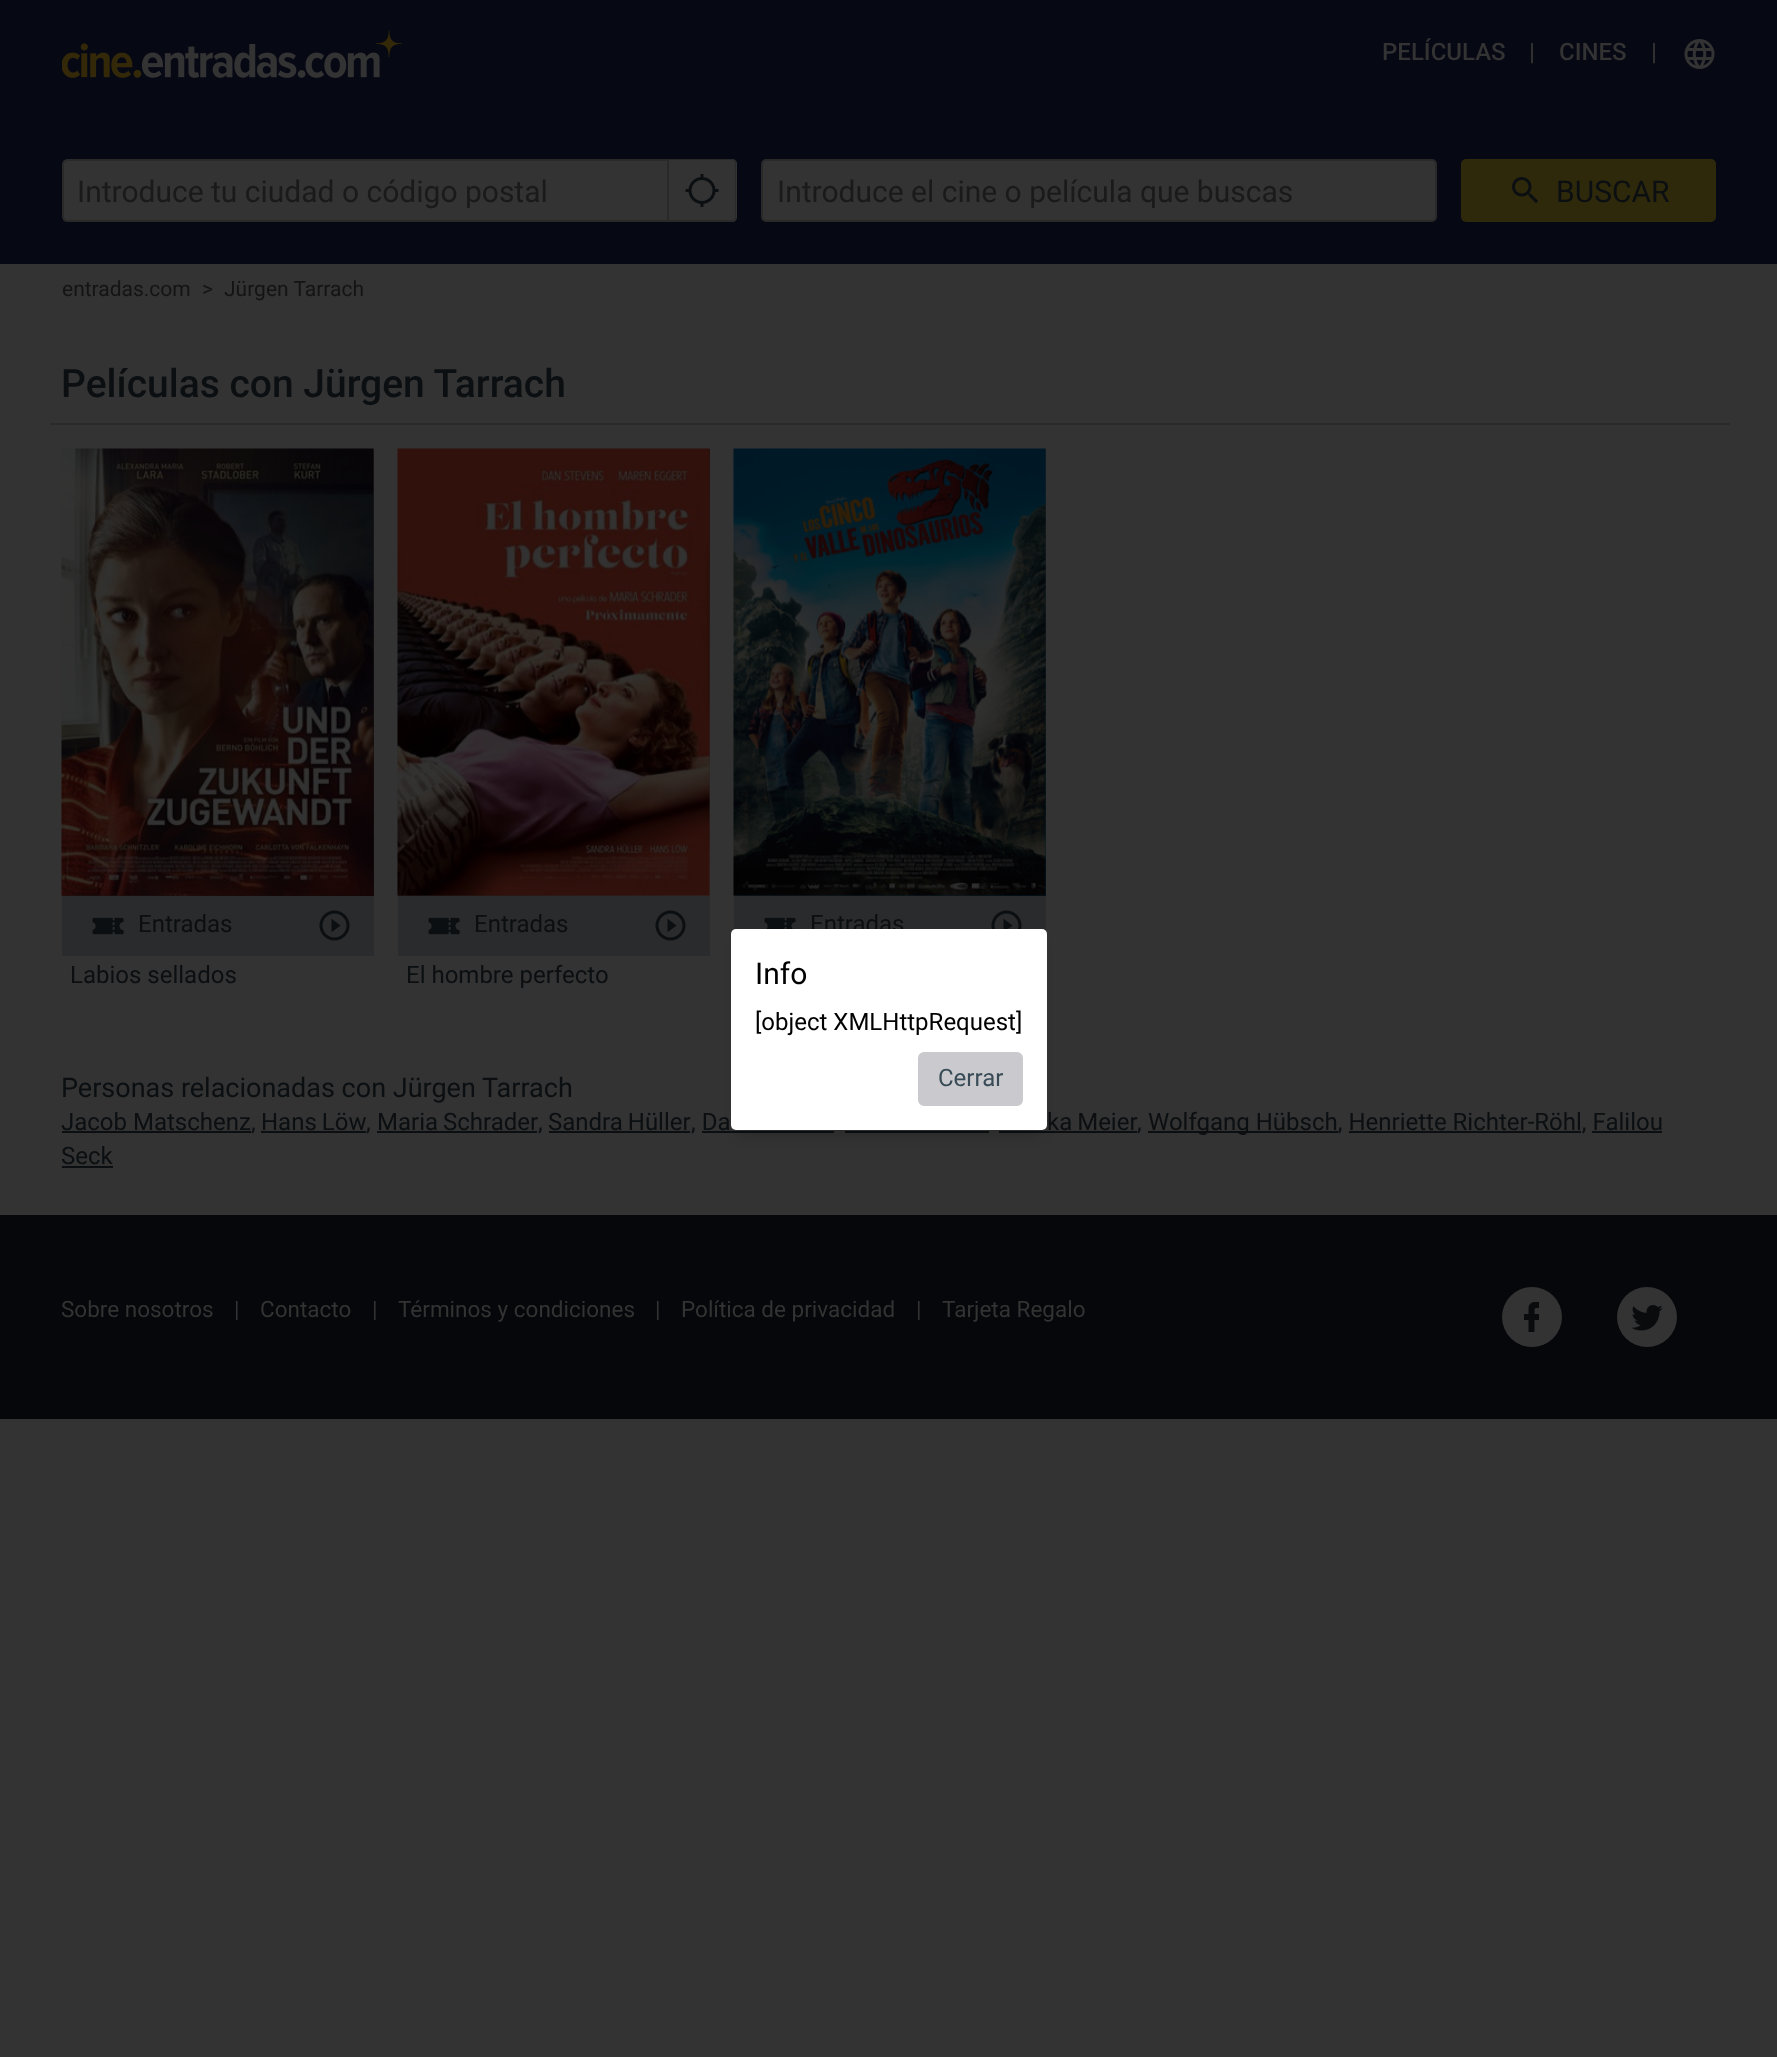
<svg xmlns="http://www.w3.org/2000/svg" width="1777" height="2057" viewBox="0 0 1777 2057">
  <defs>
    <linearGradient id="g1" gradientUnits="userSpaceOnUse" x1="28" y1="482" x2="407" y2="862"><stop offset="0" stop-color="#2e2c2a"/><stop offset="1" stop-color="#110909"/></linearGradient>
    <linearGradient id="g2" gradientUnits="userSpaceOnUse" x1="364" y1="482" x2="743" y2="862"><stop offset="0" stop-color="#0c0404"/><stop offset="1" stop-color="#312a29"/></linearGradient>
    <linearGradient id="g3" gradientUnits="userSpaceOnUse" x1="700" y1="482" x2="1079" y2="862"><stop offset="0" stop-color="#282725"/><stop offset="1" stop-color="#021b28"/></linearGradient>
  </defs>
  <rect width="100%" height="100%" fill="#333"/>
  <path d="M0 0h1777v264H0z" fill="#060814"/>
  <image x="62" y="30" width="340" height="48" href="img/1.png"/>
  <image x="1684" y="39" width="31" height="30" href="img/2.png"/>
  <path d="M67 160H668V221H67C65 221 63 219 63 217V164C63 162 65 160 67 160Z" fill="#333" stroke="#292929" stroke-width="2"/>
  <path d="M669 159H732C735 159 737 161 737 164V217C737 220 735 222 732 222H669Z" fill="#333"/>
  <path d="M669 159H732C734 159 736 161 736 164V218C736 220 734 222 732 222H669ZM669 160H732C734 160 735 162 735 164V218C735 219 734 220 732 220H669Z" fill="#292929" fill-rule="evenodd"/>
  <image x="685" y="174" width="34" height="33" href="img/3.png"/>
  <rect x="762" y="160" width="674" height="61" rx="4" fill="#333" stroke="#292929" stroke-width="2"/>
  <rect x="1462" y="160" width="253" height="61" rx="4" fill="#2f290c" stroke="#2f290c" stroke-width="2"/>
  <image x="1512" y="177" width="27" height="27" href="img/4.png"/>
  <path d="M50 423h1680v2H50z" fill="#2a2a2b"/>
  <path d="M62 449h312v447H62z" fill="url(#g1)"/>
  <image x="61" y="448" width="313" height="448" href="img/5.png"/>
  <path d="M62 896h312v60H62z" fill="#2a2b2d"/>
  <image x="92" y="917" width="32" height="18" href="img/6.png"/>
  <image x="319" y="910" width="31" height="31" href="img/7.png"/>
  <path d="M398 449h312v447H398z" fill="url(#g2)"/>
  <image x="397" y="448" width="313" height="448" href="img/8.png"/>
  <path d="M398 896h312v60H398z" fill="#2a2b2d"/>
  <image x="428" y="917" width="32" height="18" href="img/6.png"/>
  <image x="655" y="910" width="31" height="31" href="img/7.png"/>
  <path d="M734 449h312v447H734z" fill="url(#g3)"/>
  <image x="733" y="448" width="313" height="448" href="img/9.png"/>
  <path d="M734 896h312v35H734z" fill="#2a2b2d"/>
  <image x="764" y="917" width="32" height="12" href="img/10.png"/>
  <image x="991" y="910" width="31" height="19" href="img/11.png"/>
  <path d="M62 1131h189v2H62z" fill="#0b0f11"/>
  <path d="M261 1131h105v2H261z" fill="#0b0f11"/>
  <path d="M377 1131h160v2H377z" fill="#0b0f11"/>
  <path d="M549 1131h141v2H549z" fill="#0b0f11"/>
  <path d="M999 1131h138v2H999z" fill="#0b0f11"/>
  <path d="M1148 1131h190v2H1148z" fill="#0b0f11"/>
  <path d="M702 1131h132v2H702z" fill="#0b0f11"/>
  <path d="M845 1131h144v2H845z" fill="#0b0f11"/>
  <path d="M1349 1131h232v2H1349z" fill="#0b0f11"/>
  <path d="M1592 1131h70v2H1592z" fill="#0b0f11"/>
  <path d="M62 1166h51v2H62z" fill="#0b0f11"/>
  <path d="M0 1215h1777v204H0z" fill="#06070a"/>
  <circle cx="1532" cy="1317" r="30" fill="#333"/>
  <image x="1524" y="1302" width="15" height="30" href="img/12.png"/>
  <circle cx="1647" cy="1317" r="30" fill="#333"/>
  <image x="1631" y="1305" width="32" height="26" href="img/13.png"/>
  <path d="M738 948h302v186H738z" fill="#00000033" filter="blur(7px)"/>
  <g font-family="Roboto" font-size="24" font-weight="500" fill="#333">
    <text x="1382" y="60">PELÍCULAS</text>
    <text x="1529" y="60">|</text>
    <text x="1559" y="60">CINES</text>
    <text x="1651" y="60">|</text>
  </g>
  <g font-family="Roboto" font-size="30" fill="#1a1a1a">
    <text x="77" y="202">Introduce tu ciudad o código postal</text>
    <text x="777" y="202">Introduce el cine o película que buscas</text>
  </g>
  <text x="1556" y="202" font-family="Roboto" font-size="30" fill="#0b0f11">BUSCAR</text>
  <g font-family="Roboto" font-size="21" fill="#141414">
    <text x="62" y="296">entradas.com</text>
    <text x="202" y="296">&gt;</text>
    <text x="224" y="296">Jürgen Tarrach</text>
  </g>
  <text x="61" y="397" font-family="Roboto" font-size="39" font-weight="500" fill="#0b0f11">Películas con Jürgen Tarrach</text>
  <g font-family="Roboto" font-size="24" fill="#0b0f11">
    <text x="138" y="932">Entradas</text>
    <text x="70" y="983">Labios sellados</text>
    <text x="474" y="932">Entradas</text>
    <text x="406" y="983">El hombre perfecto</text>
    <text x="810" y="932">Entradas</text>
  </g>
  <text x="61" y="1097" font-family="Roboto" font-size="27" fill="#0b0f11">Personas relacionadas con Jürgen Tarrach</text>
  <g font-family="Roboto" font-size="24" fill="#0b0f11">
    <text x="61" y="1130">Jacob Matschenz,</text>
    <text x="261" y="1130" word-spacing="-1">Hans Löw</text>
    <text x="366" y="1130">,</text>
    <text x="377" y="1130" word-spacing="-1">Maria Schrader</text>
    <text x="538" y="1130">,</text>
    <text x="548" y="1130" word-spacing="-1">Sandra Hüller</text>
    <text x="691" y="1130">, Da</text>
    <text x="1047" y="1130" word-spacing="-1">ka Meier</text>
    <text x="1137" y="1130">,</text>
    <text x="1148" y="1130">Wolfgang Hübsch, Henriette Richter-Röhl, Falilou</text>
    <text x="61" y="1164">Seck</text>
  </g>
  <g font-family="Roboto" font-size="22.5" fill="#333">
    <text x="61" y="1317">Sobre nosotros</text>
    <text x="234" y="1317">|</text>
    <text x="260" y="1317">Contacto</text>
    <text x="372" y="1317">|</text>
    <text x="398" y="1317">Términos y condiciones</text>
    <text x="655" y="1317">|</text>
    <text x="681" y="1317">Política de privacidad</text>
    <text x="916" y="1317">|</text>
    <text x="942" y="1317">Tarjeta Regalo</text>
  </g>
  <rect x="731" y="929" width="316" height="201" rx="5" fill="#fff"/>
  <text x="755" y="984" font-family="Roboto" font-size="30" fill="#000">Info</text>
  <text x="755" y="1030" font-family="Roboto" font-size="24" fill="#000">[object XMLHttpRequest]</text>
  <rect x="919" y="1053" width="103" height="52" rx="5" fill="#cacace" stroke="#cacace" stroke-width="2"/>
  <text x="938" y="1086" font-family="Roboto" font-size="24" fill="#384b56">Cerrar</text>
</svg>
